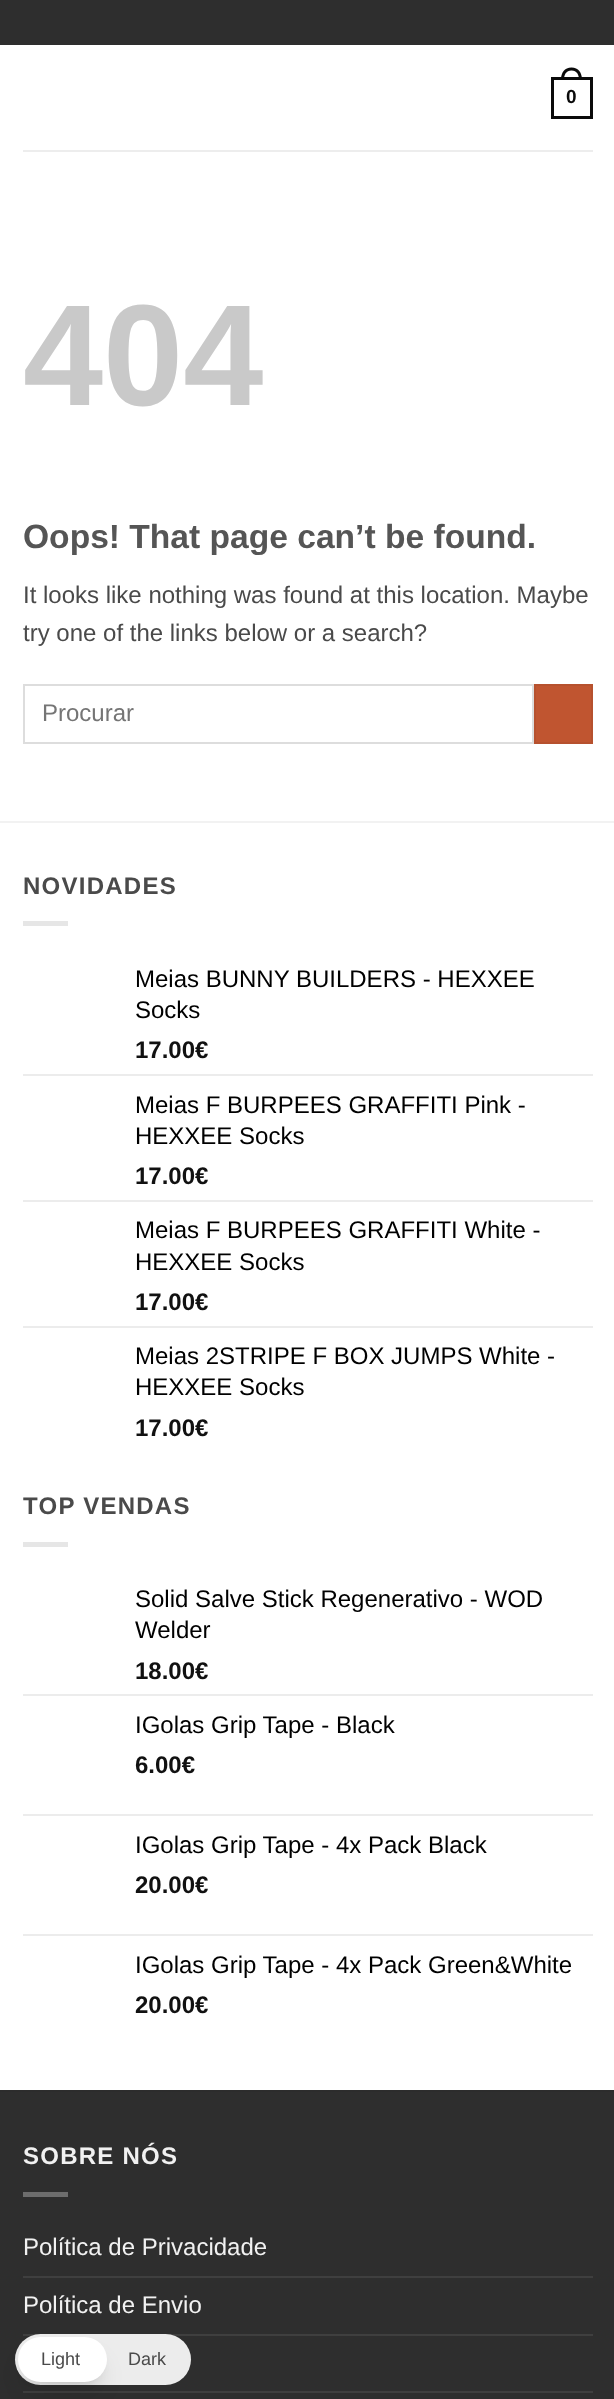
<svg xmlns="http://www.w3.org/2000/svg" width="614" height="2399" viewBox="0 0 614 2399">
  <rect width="100%" height="100%" fill="#fff"/>
  <path d="M0 0h614v45H0z" fill="#2e2e2e"/>
  <path d="M552.5 78.5h39v39H552.5z" fill="none" stroke="#0a0a0a" stroke-width="3"/>
  <path d="M571.5 67.5C578.5 67.5 582 73 582 79.5H561C561 73 564.5 67.5 571.5 67.5ZM571.5 70.5C577 70.5 579 75 579 79.5H564C564 75 566 70.5 571.5 70.5Z" fill="#0a0a0a" fill-rule="evenodd"/>
  <path d="M23 150h570v2H23z" fill="#ededed"/>
  <path d="M24 685h509v58H24z" fill="none" stroke="#ddd" stroke-width="2"/>
  <path d="M535 685h57v58H535z" fill="#c05530" stroke="#b6512e" stroke-width="2"/>
  <path d="M0 821h614v2H0z" fill="#f2f2f2"/>
  <path d="M23 921h45v5H23z" fill="#e6e6e6"/>
  <path d="M23 1074h570v2H23z" fill="#ececec"/>
  <path d="M23 1200h570v2H23z" fill="#ececec"/>
  <path d="M23 1326h570v2H23z" fill="#ececec"/>
  <path d="M23 1542h45v5H23z" fill="#e6e6e6"/>
  <path d="M23 1694h570v2H23z" fill="#ececec"/>
  <path d="M23 1814h570v2H23z" fill="#ececec"/>
  <path d="M23 1934h570v2H23z" fill="#ececec"/>
  <path d="M0 2092h614v307H0z" fill="#2e2e2e"/>
  <path d="M0 2090h614v2H0z" fill="#2c2c2c"/>
  <path d="M23 2192h45v5H23z" fill="#6d6d6d"/>
  <path d="M23 2276h570v2H23z" fill="#3f3f3f"/>
  <path d="M23 2334h570v2H23z" fill="#3f3f3f"/>
  <path d="M23 2391h570v2H23z" fill="#3f3f3f"/>
  <rect x="15" y="2334" width="176" height="51" rx="25.5" fill="#ececec"/>
  <rect x="24" y="2349" width="77" height="33" rx="16.5" fill="#0000001a" filter="blur(4.5px)"/>
  <rect x="23" y="2357" width="79" height="36" rx="18" fill="#0000001a" filter="blur(11px)"/>
  <rect x="18" y="2337" width="89" height="45" rx="22.5" fill="#fff"/>
  <text x="566" y="103" font-family="Liberation Sans" font-size="19" font-weight="bold" fill="#0a0a0a">0</text>
  <text x="23" y="405" font-family="Liberation Sans" font-size="144" font-weight="bold" fill="#c9c9c9">404</text>
  <text x="23" y="548" font-family="Liberation Sans" font-size="33.6" font-weight="bold" fill="#555">Oops! That page can’t be found.</text>
  <g font-family="Liberation Sans" font-size="24" fill="#4a4a4a">
    <text x="23" y="603">It looks like nothing was found at this location. Maybe</text>
    <text x="23" y="641">try one of the links below or a search?</text>
  </g>
  <text x="42" y="721" font-family="Liberation Sans" font-size="24" fill="#757575">Procurar</text>
  <text x="23" y="894" font-family="Liberation Sans" font-size="24" font-weight="bold" letter-spacing="1.25" fill="#4a4a4a">NOVIDADES</text>
  <g font-family="Liberation Sans" font-size="24" fill="#000">
    <text x="135" y="987">Meias BUNNY BUILDERS - HEXXEE</text>
    <text x="135" y="1018">Socks</text>
  </g>
  <text x="135" y="1058" font-family="Liberation Sans" font-size="24" font-weight="bold" fill="#111">17.00€</text>
  <g font-family="Liberation Sans" font-size="24" fill="#000">
    <text x="135" y="1113">Meias F BURPEES GRAFFITI Pink -</text>
    <text x="135" y="1144">HEXXEE Socks</text>
  </g>
  <text x="135" y="1184" font-family="Liberation Sans" font-size="24" font-weight="bold" fill="#111">17.00€</text>
  <g font-family="Liberation Sans" font-size="24" fill="#000">
    <text x="135" y="1238">Meias F BURPEES GRAFFITI White -</text>
    <text x="135" y="1270">HEXXEE Socks</text>
  </g>
  <text x="135" y="1310" font-family="Liberation Sans" font-size="24" font-weight="bold" fill="#111">17.00€</text>
  <g font-family="Liberation Sans" font-size="24" fill="#000">
    <text x="135" y="1364">Meias 2STRIPE F BOX JUMPS White -</text>
    <text x="135" y="1395">HEXXEE Socks</text>
  </g>
  <text x="135" y="1436" font-family="Liberation Sans" font-size="24" font-weight="bold" fill="#111">17.00€</text>
  <text x="23" y="1514" font-family="Liberation Sans" font-size="24" font-weight="bold" letter-spacing="1.25" fill="#4a4a4a">TOP VENDAS</text>
  <g font-family="Liberation Sans" font-size="24" fill="#000">
    <text x="135" y="1607">Solid Salve Stick Regenerativo - WOD</text>
    <text x="135" y="1638">Welder</text>
  </g>
  <text x="135" y="1679" font-family="Liberation Sans" font-size="24" font-weight="bold" fill="#111">18.00€</text>
  <text x="135" y="1733" font-family="Liberation Sans" font-size="24" fill="#000">IGolas Grip Tape - Black</text>
  <text x="135" y="1773" font-family="Liberation Sans" font-size="24" font-weight="bold" fill="#111">6.00€</text>
  <text x="135" y="1853" font-family="Liberation Sans" font-size="24" fill="#000">IGolas Grip Tape - 4x Pack Black</text>
  <text x="135" y="1893" font-family="Liberation Sans" font-size="24" font-weight="bold" fill="#111">20.00€</text>
  <text x="135" y="1973" font-family="Liberation Sans" font-size="24" fill="#000">IGolas Grip Tape - 4x Pack Green&amp;White</text>
  <text x="135" y="2013" font-family="Liberation Sans" font-size="24" font-weight="bold" fill="#111">20.00€</text>
  <text x="23" y="2164" font-family="Liberation Sans" font-size="24" font-weight="bold" letter-spacing="1.25" fill="#f1f1f1">SOBRE NÓS</text>
  <g font-family="Liberation Sans" font-size="24" fill="#f1f1f1">
    <text x="23" y="2255">Política de Privacidade</text>
    <text x="23" y="2313">Política de Envio</text>
  </g>
  <g font-family="Liberation Sans" font-size="18" fill="#4a4a4a">
    <text x="41" y="2365">Light</text>
    <text x="128" y="2365">Dark</text>
  </g>
</svg>
